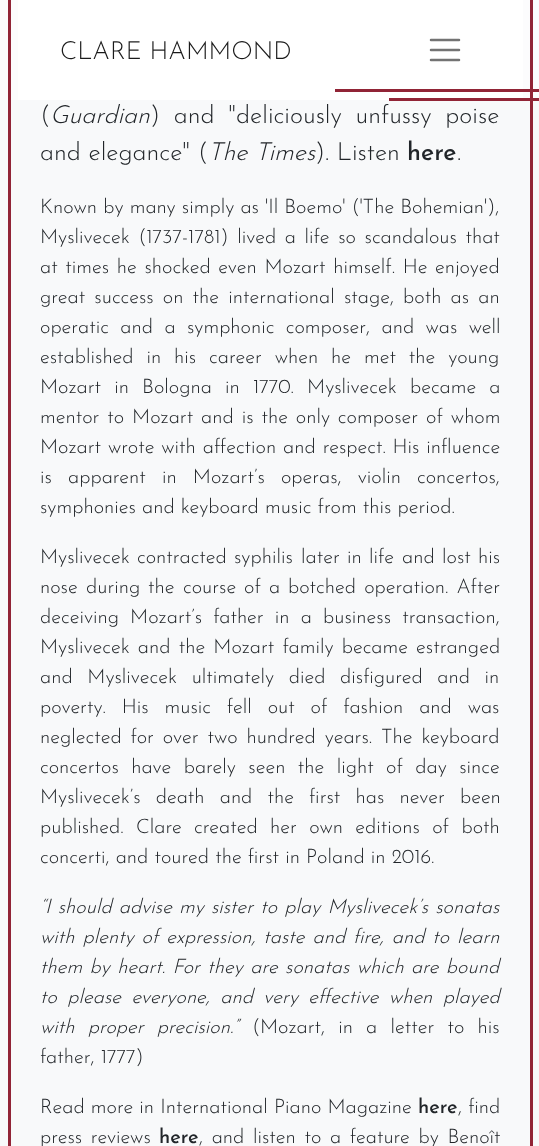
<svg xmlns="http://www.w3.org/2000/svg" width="539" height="1146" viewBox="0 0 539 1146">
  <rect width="100%" height="100%" fill="#f8f9fa"/>
  <path d="M0 0h539v100H0z" fill="#fcfcfd"/>
  <path d="M18 0h505v100H18z" fill="#fff"/>
  <path d="M431 40H459M431 50H459M431 60H459" fill="none" stroke="#737373" stroke-width="2.5" stroke-linecap="round"/>
  <path d="M335 89h204v3H335z" fill="#912436"/>
  <path d="M389 98h150v3H389z" fill="#912436"/>
  <path d="M8 0h3v1146H8z" fill="#912436"/>
  <path d="M530 0h3v1146H530z" fill="#912436"/>
  <text x="60" y="59" font-family="Josefin Sans" font-size="25" font-weight="300" fill="#1a1a1a">CLARE HAMMOND</text>
  <text x="40" y="123" font-family="Josefin Sans" font-size="25" font-weight="300" fill="#212529">(</text>
  <text x="50" y="123" font-family="Josefin Sans" font-size="25" font-weight="300" font-style="italic" fill="#212529">Guardian</text>
  <g font-family="Josefin Sans" font-size="25" font-weight="300" fill="#212529">
    <text x="150" y="123" word-spacing="6">) and "deliciously unfussy poise</text>
    <text x="40" y="160">and elegance" (</text>
  </g>
  <text x="208" y="160" font-family="Josefin Sans" font-size="25" font-weight="300" font-style="italic" fill="#212529">The Times</text>
  <text x="315" y="160" font-family="Josefin Sans" font-size="25" font-weight="300" fill="#212529">). Listen</text>
  <text x="407" y="160" font-family="Josefin Sans" font-size="25" font-weight="500" fill="#212529">here</text>
  <text x="457" y="160" font-family="Josefin Sans" font-size="25" font-weight="300" fill="#212529">.</text>
  <g font-family="Josefin Sans" font-size="20" font-weight="300" fill="#212529">
    <text x="40" y="213">Known by many simply as 'Il Boemo' ('The Bohemian'),</text>
    <text x="40" y="243" word-spacing="2.5">Myslivecek (1737-1781) lived a life so scandalous that</text>
    <text x="40" y="273" word-spacing="1.5">at times he shocked even Mozart himself. He enjoyed</text>
    <text x="40" y="303" word-spacing="3">great success on the international stage, both as an</text>
    <text x="40" y="333" word-spacing="5.25">operatic and a symphonic composer, and was well</text>
    <text x="40" y="363" word-spacing="6.75">established in his career when he met the young</text>
    <text x="40" y="393" word-spacing="7">Mozart in Bologna in 1770. Myslivecek became a</text>
    <text x="40" y="423" word-spacing="1.75">mentor to Mozart and is the only composer of whom</text>
    <text x="40" y="453" word-spacing="0.75">Mozart wrote with affection and respect. His influence</text>
    <text x="40" y="483" word-spacing="10">is apparent in Mozart’s operas, violin concertos,</text>
    <text x="40" y="513">symphonies and keyboard music from this period.</text>
    <text x="40" y="563">Myslivecek</text>
    <text x="137" y="563">contracted</text>
    <text x="234" y="563">syphilis</text>
    <text x="301" y="563">later</text>
    <text x="347" y="563">in</text>
    <text x="369" y="563">life</text>
    <text x="402" y="563">and</text>
    <text x="442" y="563">lost</text>
    <text x="478" y="563">his</text>
    <text x="40" y="593">nose</text>
    <text x="86" y="593">during</text>
    <text x="148" y="593">the</text>
    <text x="183" y="593">course</text>
    <text x="244" y="593">of</text>
    <text x="269" y="593">a</text>
    <text x="288" y="593" word-spacing="2">botched operation. After</text>
    <text x="40" y="623" word-spacing="5">deceiving Mozart’s father in a business transaction,</text>
    <text x="40" y="653" word-spacing="2">Myslivecek and the Mozart family became estranged</text>
    <text x="40" y="683" word-spacing="8.5">and Myslivecek ultimately died disfigured and in</text>
    <text x="40" y="713" word-spacing="9.75">poverty. His music fell out of fashion and was</text>
    <text x="40" y="743" word-spacing="2.75">neglected for over two hundred years. The keyboard</text>
    <text x="40" y="773" word-spacing="6.25">concertos have barely seen the light of day since</text>
    <text x="40" y="803" word-spacing="9">Myslivecek’s death and the first has never been</text>
    <text x="40" y="833" word-spacing="6.25">published. Clare created her own editions of both</text>
    <text x="40" y="863">concerti, and toured the first in Poland in 2016.</text>
  </g>
  <g font-family="Josefin Sans" font-size="20" font-weight="300" font-style="italic" fill="#212529">
    <text x="40" y="913" word-spacing="1">“I should advise my sister to play Myslivecek’s sonatas</text>
    <text x="40" y="943" word-spacing="1.75">with plenty of expression, taste and fire, and to learn</text>
    <text x="40" y="973" word-spacing="1.25">them by heart. For they are sonatas which are bound</text>
    <text x="40" y="1003" word-spacing="4.25">to please everyone, and very effective when played</text>
    <text x="40" y="1033" word-spacing="7">with proper precision.”</text>
  </g>
  <g font-family="Josefin Sans" font-size="20" font-weight="300" fill="#212529">
    <text x="252" y="1033" word-spacing="7">(Mozart, in a letter to his</text>
    <text x="40" y="1063">father, 1777)</text>
    <text x="40" y="1113">Read more in International Piano Magazine</text>
  </g>
  <text x="418" y="1113" font-family="Josefin Sans" font-size="20" font-weight="500" fill="#212529">here</text>
  <g font-family="Josefin Sans" font-size="20" font-weight="300" fill="#212529">
    <text x="458" y="1113">, find</text>
    <text x="40" y="1143" word-spacing="2.5">press reviews</text>
  </g>
  <text x="159" y="1143" font-family="Josefin Sans" font-size="20" font-weight="500" fill="#212529">here</text>
  <text x="199" y="1143" word-spacing="2.5" font-family="Josefin Sans" font-size="20" font-weight="300" fill="#212529">, and listen to a feature by Benoît</text>
</svg>
